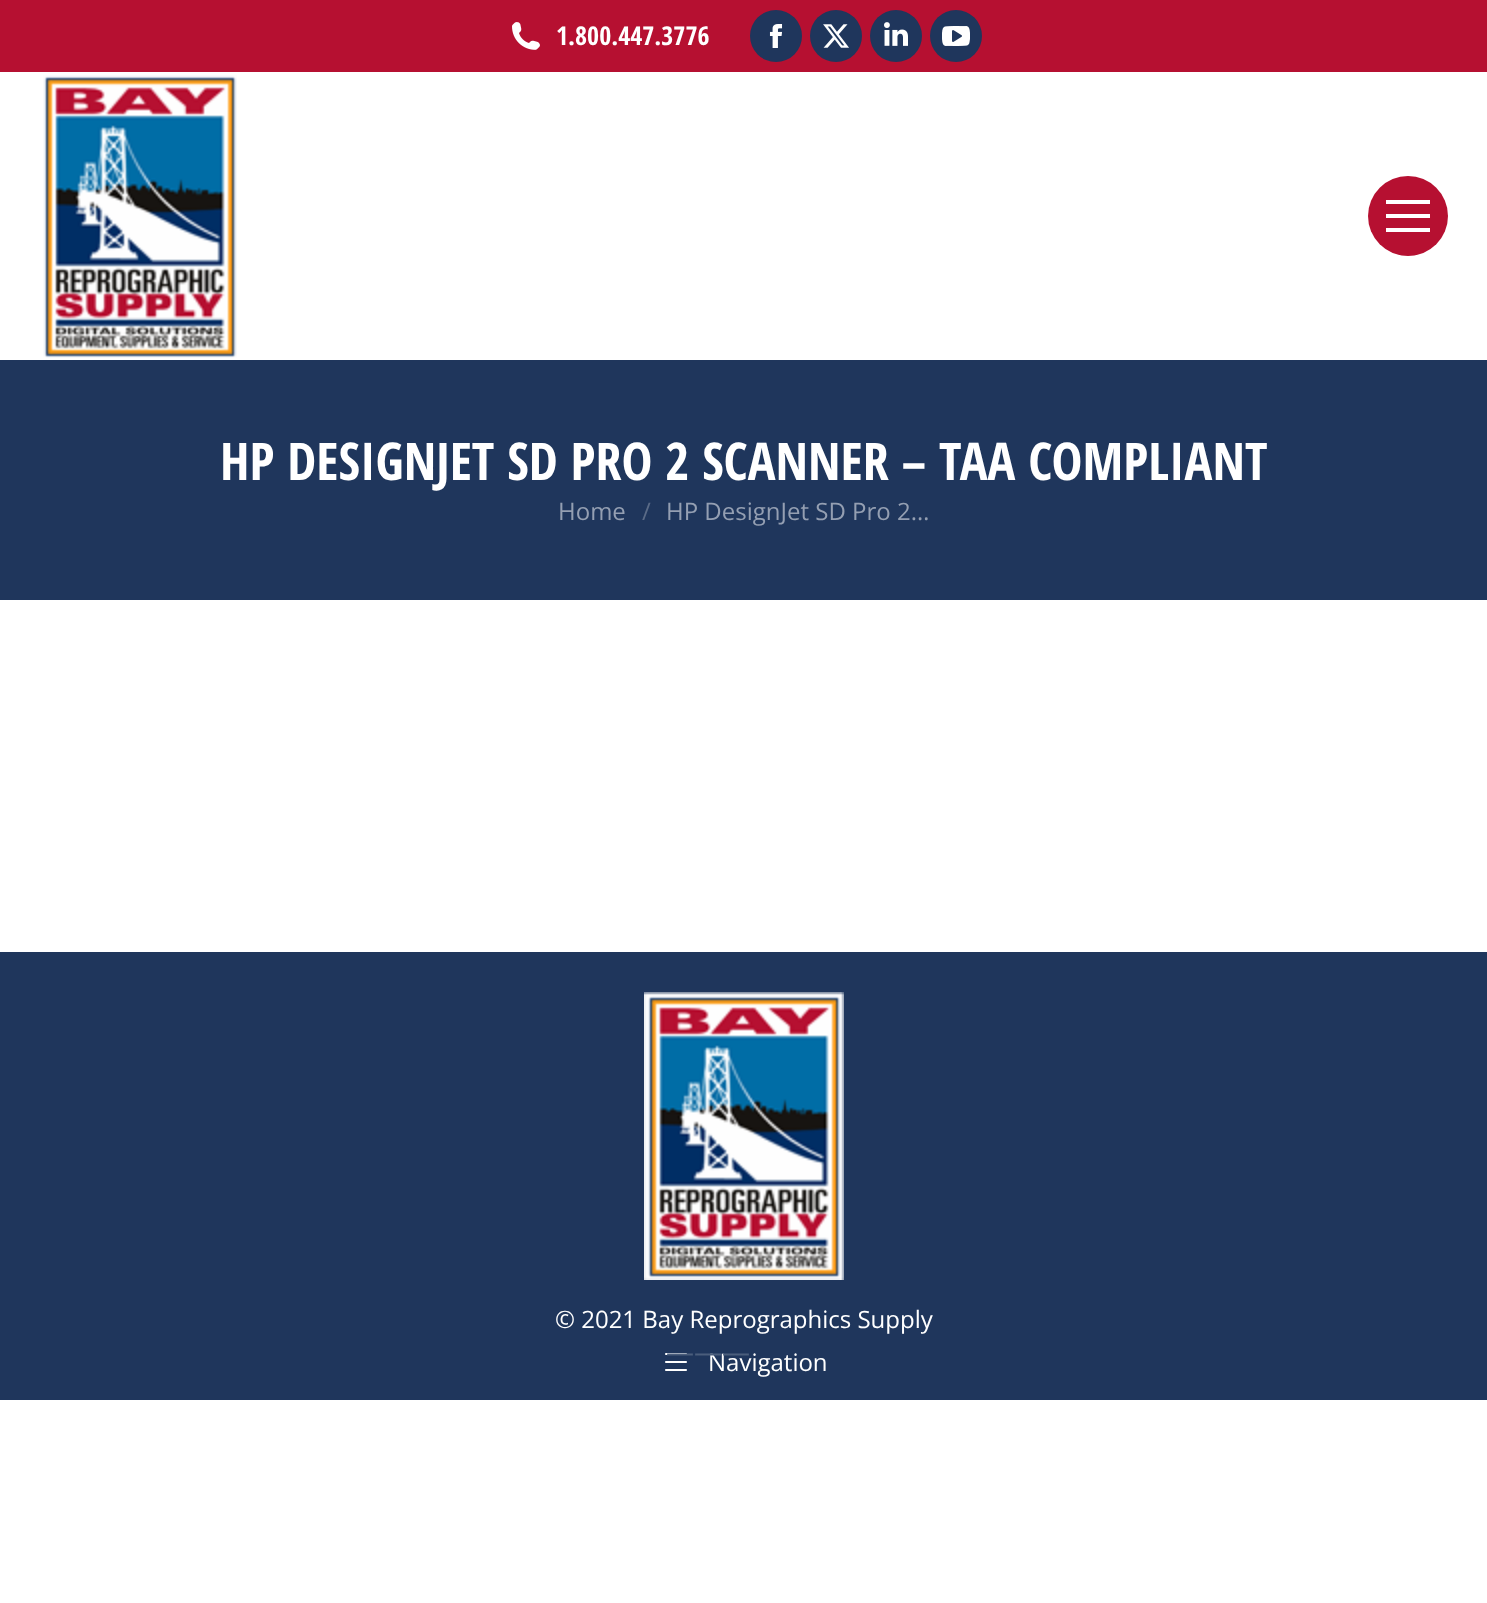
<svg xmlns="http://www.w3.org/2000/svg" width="1487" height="1603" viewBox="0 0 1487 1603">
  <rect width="100%" height="100%" fill="#fff"/>
  <path d="M0 0h1487v72H0z" fill="#b61031"/>
  <image x="512" y="22" width="28" height="28" href="img/1.png"/>
  <circle cx="776" cy="36" r="26" fill="#1f365c"/>
  <image x="769" y="24" width="14" height="24" href="img/2.png"/>
  <circle cx="836" cy="36" r="26" fill="#1f365c"/>
  <image x="823" y="24" width="26" height="24" href="img/3.png"/>
  <circle cx="896" cy="36" r="26" fill="#1f365c"/>
  <image x="884" y="22" width="24" height="24" href="img/4.png"/>
  <circle cx="956" cy="36" r="26" fill="#1f365c"/>
  <image x="942" y="26" width="28" height="20" href="img/5.png"/>
  <image x="43" y="75" width="194" height="283" href="img/6.png"/>
  <circle cx="1408" cy="216" r="40" fill="#b61031"/>
  <path d="M1386 200h44v4H1386z" fill="#fff"/>
  <path d="M1386 214h44v4H1386z" fill="#fff"/>
  <path d="M1386 228h44v4H1386z" fill="#fff"/>
  <path d="M0 360h1487v240H0z" fill="#1f365c"/>
  <path d="M0 952h1487v448H0z" fill="#1f365c"/>
  <image x="644" y="992" width="200" height="288" href="img/7.png"/>
  <image x="665" y="1353" width="22" height="18" href="img/8.png"/>
  <text x="556" y="45" font-family="Open Sans Condensed" font-size="26" font-weight="bold" fill="#fff">1.800.447.3776</text>
  <text x="220" y="480" font-family="Open Sans Condensed" font-size="52" font-weight="bold" fill="#fff">HP DESIGNJET SD PRO 2 SCANNER – TAA COMPLIANT</text>
  <text x="558" y="520" font-family="Open Sans" font-size="24" fill="#949fb2">Home</text>
  <text x="642" y="520" font-family="Open Sans" font-size="24" fill="#5a6b87">/</text>
  <text x="666" y="520" font-family="Open Sans" font-size="24" fill="#949fb2">HP DesignJet SD Pro 2…</text>
  <g font-family="Open Sans" font-size="24" fill="#fff">
    <text x="555" y="1328">© 2021 Bay Reprographics Supply</text>
    <text x="708" y="1371">Navigation</text>
  </g>
  <text x="666" y="1362" font-family="Open Sans" font-size="28" fill="#4b5e7c">———</text>
</svg>
